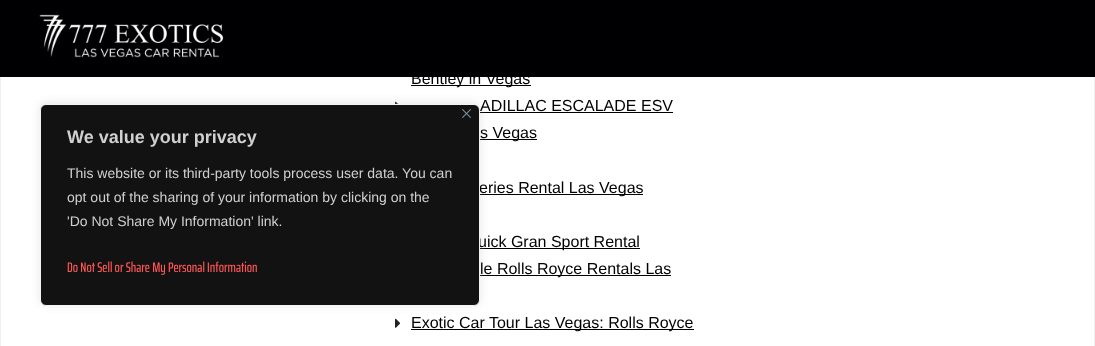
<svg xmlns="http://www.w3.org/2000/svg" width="1095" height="346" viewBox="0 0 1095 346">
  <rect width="100%" height="100%" fill="#fff"/>
  <path d="M0.5 -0.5h1094v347H0.5z" fill="none" stroke="#f0f0f0"/>
  <image x="395" y="101" width="3" height="3" href="img/3.png"/>
  <path d="M480 112h193v1H480z" fill="#000"/>
  <path d="M480 139h57v1H480z" fill="#000"/>
  <path d="M480 194h163v1H480z" fill="#000"/>
  <path d="M480 248h160v1H480z" fill="#000"/>
  <path d="M480 275h191v1H480z" fill="#000"/>
  <image x="395" y="318" width="6" height="10" href="img/4.png"/>
  <rect x="40" y="103" width="440" height="202" rx="6" fill="#acabab4d" filter="blur(5px)"/>
  <path d="M411 85h120v1H411z" fill="#000"/>
  <path d="M411 329h283v1H411z" fill="#000"/>
  <text x="411" y="84" font-family="Liberation Sans" font-size="16" fill="#000">Bentley in Vegas</text>
  <path d="M0 0h1095v77H0z" fill="#000002"/>
  <image x="39" y="14" width="185" height="44" href="img/1.png"/>
  <g font-family="Liberation Sans" font-size="16" fill="#000">
    <text x="480" y="111">ADILLAC ESCALADE ESV</text>
    <text x="480" y="138">s Vegas</text>
    <text x="479" y="193">eries Rental Las Vegas</text>
    <text x="478" y="247">uick Gran Sport Rental</text>
  </g>
  <rect x="40.5" y="104.5" width="439" height="201" rx="5.5" fill="#121212" stroke="#f4f4f4"/>
  <image x="462" y="109" width="9" height="9" href="img/2.png"/>
  <text x="67" y="272" font-family="Saira ExtraCondensed" font-size="14" font-weight="500" fill="#fe5656">Do Not Sell or Share My Personal Information</text>
  <g font-family="Liberation Sans" font-size="14" fill="#d0d0d0">
    <text x="67" y="226">'Do Not Share My Information' link.</text>
    <text x="67" y="202">opt out of the sharing of your information by clicking on the</text>
    <text x="67" y="178">This website or its third-party tools process user data. You can</text>
  </g>
  <text x="67" y="143" font-family="Liberation Sans" font-size="18" font-weight="bold" fill="#d0d0d0">We value your privacy</text>
  <g font-family="Liberation Sans" font-size="16" fill="#000">
    <text x="480" y="274">le Rolls Royce Rentals Las</text>
    <text x="411" y="328">Exotic Car Tour Las Vegas: Rolls Royce</text>
  </g>
</svg>
